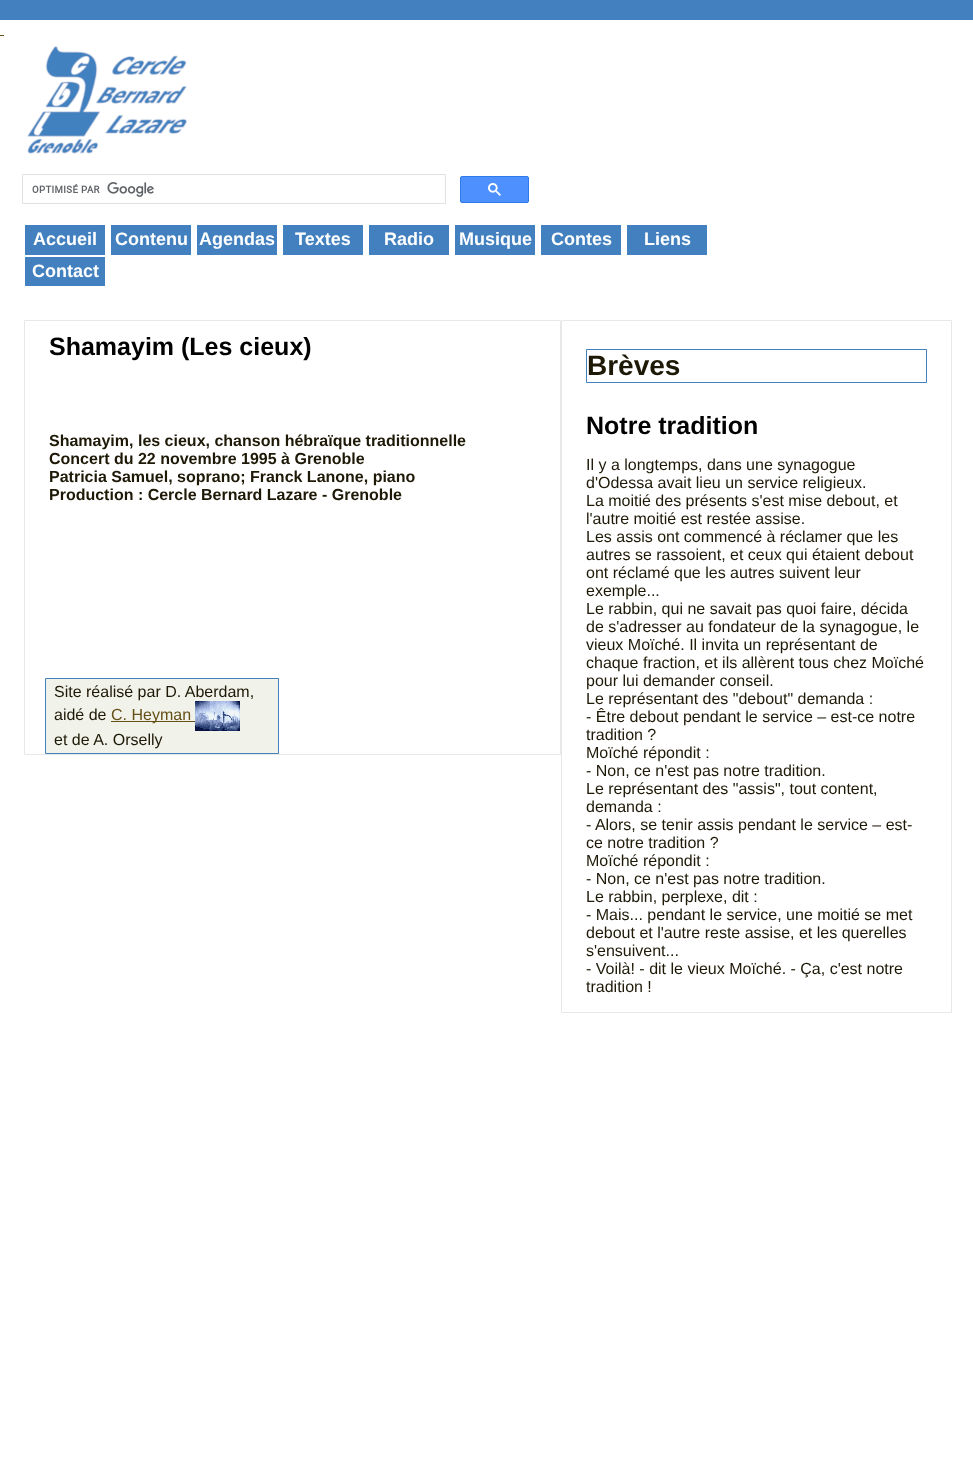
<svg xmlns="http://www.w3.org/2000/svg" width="973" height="1477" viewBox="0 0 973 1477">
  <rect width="100%" height="100%" fill="#fff"/>
  <path d="M0 0h973v20H0z" fill="#4380bf"/>
  <image x="24" y="40" width="168" height="120" href="img/1.png"/>
  <path d="M22.5 174.5h423v29H22.5z" fill="none" stroke="#dfe1e5"/>
  <image x="32" y="182" width="122" height="15" href="img/2.png"/>
  <rect x="460.5" y="176.5" width="68" height="26" rx="1.5" fill="#4d90fe" stroke="#3079ed"/>
  <image x="488" y="183" width="13" height="13" href="img/3.png"/>
  <path d="M0 35h4v1H0z" fill="#655018"/>
  <path d="M25 225h80v30H25z" fill="#4380bf"/>
  <path d="M111 225h80v30H111z" fill="#4380bf"/>
  <path d="M197 225h80v30H197z" fill="#4380bf"/>
  <path d="M283 225h80v30H283z" fill="#4380bf"/>
  <path d="M369 225h80v30H369z" fill="#4380bf"/>
  <path d="M455 225h80v30H455z" fill="#4380bf"/>
  <path d="M541 225h80v30H541z" fill="#4380bf"/>
  <path d="M627 225h80v30H627z" fill="#4380bf"/>
  <path d="M25 257h80v29H25z" fill="#4380bf"/>
  <path d="M24.5 320.5h536v434H24.5z" fill="none" stroke="#e8e8e8"/>
  <path d="M45.5 678.5h233v75H45.5z" fill="#f1f2e9" stroke="#4380bf"/>
  <path d="M111 721h84v1H111z" fill="#655018"/>
  <image x="195" y="701" width="45" height="30" href="img/4.png"/>
  <path d="M561.5 320.5h390v692H561.5z" fill="none" stroke="#e8e8e8"/>
  <path d="M586.5 349.5h340v33H586.5z" fill="none" stroke="#4380bf"/>
  <g font-family="Liberation Sans" font-size="18" font-weight="bold" fill="#fff">
    <text x="33" y="245">Accueil</text>
    <text x="115" y="245">Contenu</text>
    <text x="199" y="245">Agendas</text>
    <text x="295" y="245">Textes</text>
    <text x="384" y="245">Radio</text>
    <text x="459" y="245">Musique</text>
    <text x="551" y="245">Contes</text>
    <text x="644" y="245">Liens</text>
    <text x="32" y="277">Contact</text>
  </g>
  <text x="49" y="355" font-family="Liberation Sans" font-size="25" font-weight="bold" fill="#000">Shamayim (Les cieux)</text>
  <g font-family="Liberation Sans" font-size="16" font-weight="bold" fill="#1e1907">
    <text x="49" y="446">Shamayim, les cieux, chanson hébraïque traditionnelle</text>
    <text x="49" y="464">Concert du 22 novembre 1995 à Grenoble</text>
    <text x="49" y="482">Patricia Samuel, soprano; Franck Lanone, piano</text>
    <text x="49" y="500">Production : Cercle Bernard Lazare - Grenoble</text>
  </g>
  <g font-family="Liberation Sans" font-size="16" fill="#1e1907">
    <text x="54" y="697">Site réalisé par D. Aberdam,</text>
    <text x="54" y="720">aidé de</text>
  </g>
  <text x="111" y="720" font-family="Liberation Sans" font-size="16" fill="#655018">C. Heyman</text>
  <text x="54" y="745" font-family="Liberation Sans" font-size="16" fill="#1e1907">et de A. Orselly</text>
  <text x="587" y="375" font-family="Liberation Sans" font-size="28" font-weight="bold" fill="#1e1907">Brèves</text>
  <text x="586" y="434" font-family="Liberation Sans" font-size="25" font-weight="bold" fill="#000">Notre tradition</text>
  <g font-family="Liberation Sans" font-size="16" fill="#1e1907">
    <text x="586" y="470">Il y a longtemps, dans une synagogue</text>
    <text x="586" y="488">d'Odessa avait lieu un service religieux.</text>
    <text x="586" y="506">La moitié des présents s'est mise debout, et</text>
    <text x="586" y="524">l'autre moitié est restée assise.</text>
    <text x="586" y="542">Les assis ont commencé à réclamer que les</text>
    <text x="586" y="560">autres se rassoient, et ceux qui étaient debout</text>
    <text x="586" y="578">ont réclamé que les autres suivent leur</text>
    <text x="586" y="596">exemple...</text>
    <text x="586" y="614">Le rabbin, qui ne savait pas quoi faire, décida</text>
    <text x="586" y="632">de s'adresser au fondateur de la synagogue, le</text>
    <text x="586" y="650">vieux Moïché. Il invita un représentant de</text>
    <text x="586" y="668">chaque fraction, et ils allèrent tous chez Moïché</text>
    <text x="586" y="686">pour lui demander conseil.</text>
    <text x="586" y="704">Le représentant des "debout" demanda :</text>
    <text x="586" y="722">- Être debout pendant le service – est-ce notre</text>
    <text x="586" y="740">tradition ?</text>
    <text x="586" y="758">Moïché répondit :</text>
    <text x="586" y="776">- Non, ce n'est pas notre tradition.</text>
    <text x="586" y="794">Le représentant des "assis", tout content,</text>
    <text x="586" y="812">demanda :</text>
    <text x="586" y="830">- Alors, se tenir assis pendant le service – est-</text>
    <text x="586" y="848">ce notre tradition ?</text>
    <text x="586" y="866">Moïché répondit :</text>
    <text x="586" y="884">- Non, ce n'est pas notre tradition.</text>
    <text x="586" y="902">Le rabbin, perplexe, dit :</text>
    <text x="586" y="920">- Mais... pendant le service, une moitié se met</text>
    <text x="586" y="938">debout et l'autre reste assise, et les querelles</text>
    <text x="586" y="956">s'ensuivent...</text>
    <text x="586" y="974">- Voilà! - dit le vieux Moïché. - Ça, c'est notre</text>
    <text x="586" y="992">tradition !</text>
  </g>
</svg>
